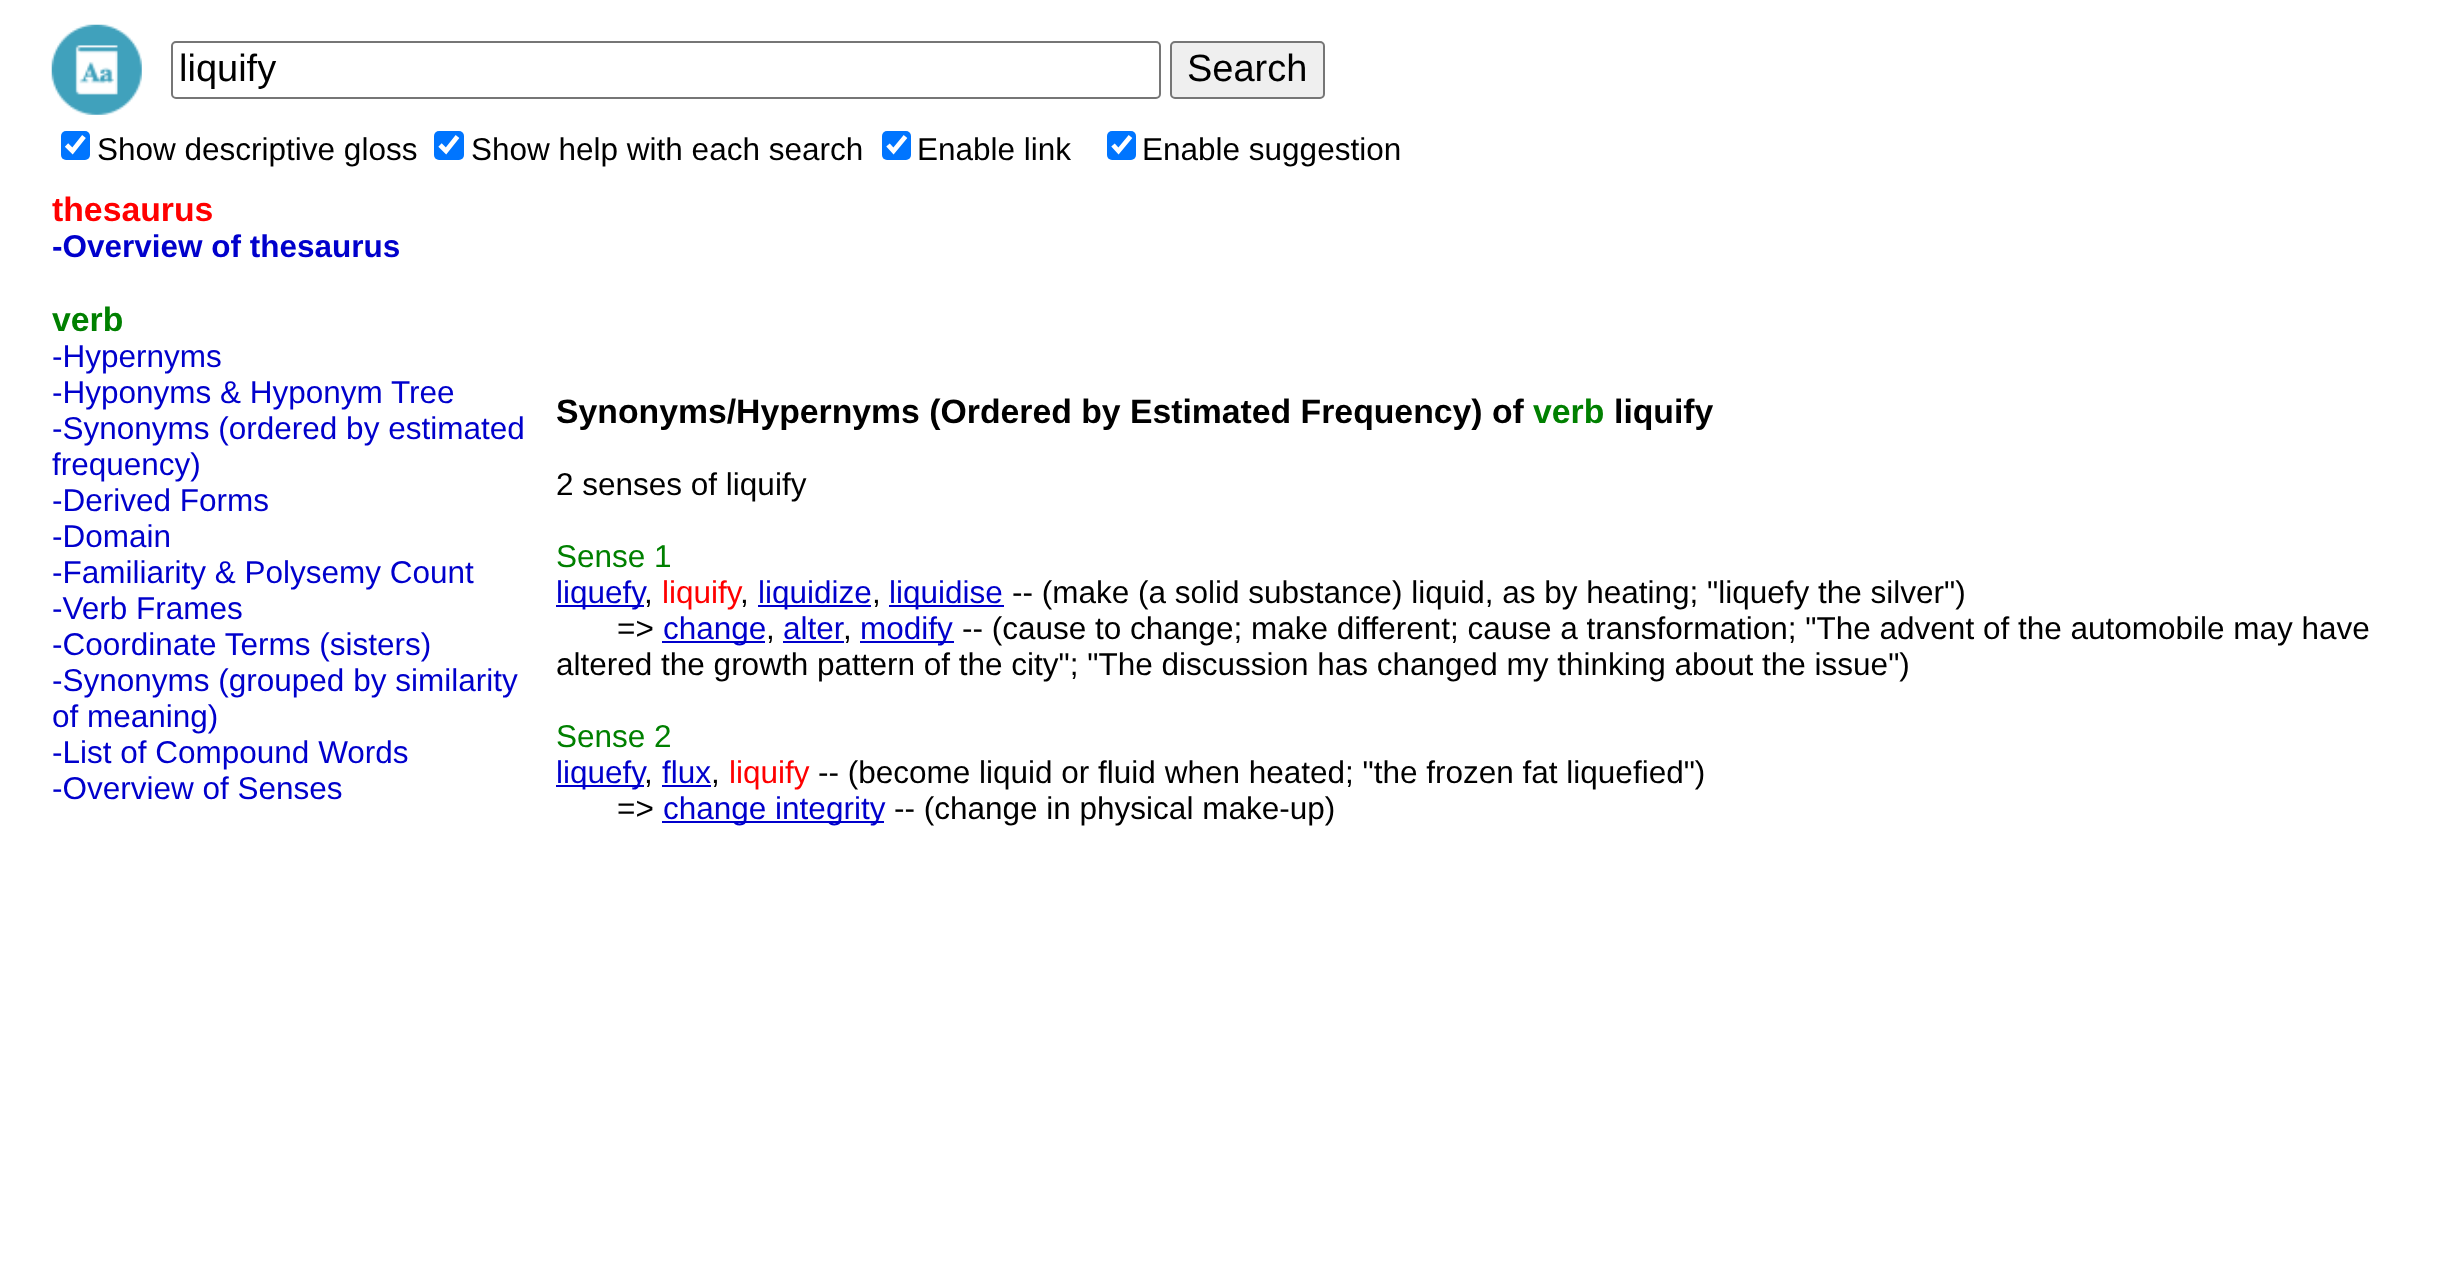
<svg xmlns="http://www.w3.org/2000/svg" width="2457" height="1285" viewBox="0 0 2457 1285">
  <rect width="100%" height="100%" fill="#fff"/>
  <image x="51" y="24" width="91" height="91" href="img/1.png"/>
  <rect x="172" y="42" width="988" height="56" rx="4" fill="none" stroke="#767676" stroke-width="2"/>
  <rect x="1171" y="42" width="153" height="56" rx="4" fill="#efefef" stroke="#767676" stroke-width="2"/>
  <rect x="61" y="131" width="29" height="29" rx="5" fill="#0075ff"/>
  <path d="M66.5 145L72.5 151L84 136.5" fill="none" stroke="#fff" stroke-width="4.7"/>
  <rect x="434" y="131" width="30" height="29" rx="5" fill="#0075ff"/>
  <path d="M440 145L446 151L457.5 136.5" fill="none" stroke="#fff" stroke-width="4.7"/>
  <rect x="882" y="131" width="29" height="29" rx="5" fill="#0075ff"/>
  <path d="M888 145L893.5 151L905.5 136.5" fill="none" stroke="#fff" stroke-width="4.7"/>
  <rect x="1107" y="131" width="29" height="29" rx="5" fill="#0075ff"/>
  <path d="M1113 145L1118.5 151L1130.5 136.5" fill="none" stroke="#fff" stroke-width="4.7"/>
  <path d="M556 605h88v2H556z" fill="#00c"/>
  <path d="M758 605h113v2H758z" fill="#00c"/>
  <path d="M889 605h115v2H889z" fill="#00c"/>
  <path d="M662 641h103v2H662z" fill="#00c"/>
  <path d="M783 641h61v2H783z" fill="#00c"/>
  <path d="M860 641h94v2H860z" fill="#00c"/>
  <path d="M556 785h88v2H556z" fill="#00c"/>
  <path d="M662 785h49v2H662z" fill="#00c"/>
  <path d="M662 821h222v2H662z" fill="#00c"/>
  <g font-family="Liberation Sans" font-size="38" fill="#000">
    <text x="179" y="81">liquify</text>
    <text x="1187" y="81">Search</text>
  </g>
  <g font-family="Liberation Sans" font-size="31.5" fill="#000">
    <text x="97" y="160">Show descriptive gloss</text>
    <text x="471" y="160">Show help with each search</text>
    <text x="917" y="160">Enable link</text>
    <text x="1142" y="160">Enable suggestion</text>
  </g>
  <text x="52" y="221" font-family="Liberation Sans" font-size="33.75" font-weight="bold" fill="#f00">thesaurus</text>
  <text x="52" y="257" font-family="Liberation Sans" font-size="31.5" font-weight="bold" fill="#00c">-Overview of thesaurus</text>
  <text x="52" y="331" font-family="Liberation Sans" font-size="33.75" font-weight="bold" fill="#008000">verb</text>
  <g font-family="Liberation Sans" font-size="31.5" fill="#00c">
    <text x="52" y="367">-Hypernyms</text>
    <text x="52" y="403">-Hyponyms &amp; Hyponym Tree</text>
    <text x="52" y="439">-Synonyms (ordered by estimated</text>
    <text x="52" y="475">frequency)</text>
    <text x="52" y="511">-Derived Forms</text>
    <text x="52" y="547">-Domain</text>
    <text x="52" y="583">-Familiarity &amp; Polysemy Count</text>
    <text x="52" y="619">-Verb Frames</text>
    <text x="52" y="655">-Coordinate Terms (sisters)</text>
    <text x="52" y="691">-Synonyms (grouped by similarity</text>
    <text x="52" y="727">of meaning)</text>
    <text x="52" y="763">-List of Compound Words</text>
    <text x="52" y="799">-Overview of Senses</text>
  </g>
  <text x="556" y="423" font-family="Liberation Sans" font-size="33.75" font-weight="bold" fill="#000">Synonyms/Hypernyms (Ordered by Estimated Frequency) of</text>
  <text x="1533" y="423" font-family="Liberation Sans" font-size="33.75" font-weight="bold" fill="#008000">verb</text>
  <text x="1614" y="423" font-family="Liberation Sans" font-size="33.75" font-weight="bold" fill="#000">liquify</text>
  <text x="556" y="495" font-family="Liberation Sans" font-size="31.5" fill="#000">2 senses of liquify</text>
  <text x="556" y="567" font-family="Liberation Sans" font-size="31.5" fill="#008000">Sense 1</text>
  <text x="556" y="603" font-family="Liberation Sans" font-size="31.5" fill="#00c">liquefy</text>
  <text x="644" y="603" font-family="Liberation Sans" font-size="31.5" fill="#000">,</text>
  <text x="662" y="603" font-family="Liberation Sans" font-size="31.5" fill="#f00">liquify</text>
  <text x="740" y="603" font-family="Liberation Sans" font-size="31.5" fill="#000">,</text>
  <text x="758" y="603" font-family="Liberation Sans" font-size="31.5" fill="#00c">liquidize</text>
  <text x="872" y="603" font-family="Liberation Sans" font-size="31.5" fill="#000">,</text>
  <text x="889" y="603" font-family="Liberation Sans" font-size="31.5" fill="#00c">liquidise</text>
  <g font-family="Liberation Sans" font-size="31.5" fill="#000">
    <text x="1012" y="603">-- (make (a solid substance) liquid, as by heating; "liquefy the silver")</text>
    <text x="617" y="639">=&gt;</text>
  </g>
  <g font-family="Liberation Sans" font-size="31.5" fill="#00c">
    <text x="663" y="639">change</text>
    <text x="783" y="639">alter</text>
    <text x="860" y="639">modify</text>
  </g>
  <g font-family="Liberation Sans" font-size="31.5" fill="#000">
    <text x="962" y="639">-- (cause to change; make different; cause a transformation; "The advent of the automobile may have</text>
    <text x="766" y="639">,</text>
    <text x="843" y="639">,</text>
    <text x="556" y="675">altered the growth pattern of the city"; "The discussion has changed my thinking about the issue")</text>
  </g>
  <text x="556" y="747" font-family="Liberation Sans" font-size="31.5" fill="#008000">Sense 2</text>
  <text x="556" y="783" font-family="Liberation Sans" font-size="31.5" fill="#00c">liquefy</text>
  <text x="644" y="783" font-family="Liberation Sans" font-size="31.5" fill="#000">,</text>
  <text x="662" y="783" font-family="Liberation Sans" font-size="31.5" fill="#00c">flux</text>
  <text x="711" y="783" font-family="Liberation Sans" font-size="31.5" fill="#000">,</text>
  <text x="729" y="783" font-family="Liberation Sans" font-size="31.5" fill="#f00">liquify</text>
  <g font-family="Liberation Sans" font-size="31.5" fill="#000">
    <text x="818" y="783">-- (become liquid or fluid when heated; "the frozen fat liquefied")</text>
    <text x="617" y="819">=&gt;</text>
  </g>
  <text x="663" y="819" font-family="Liberation Sans" font-size="31.5" fill="#00c">change integrity</text>
  <text x="894" y="819" font-family="Liberation Sans" font-size="31.5" fill="#000">-- (change in physical make-up)</text>
</svg>
